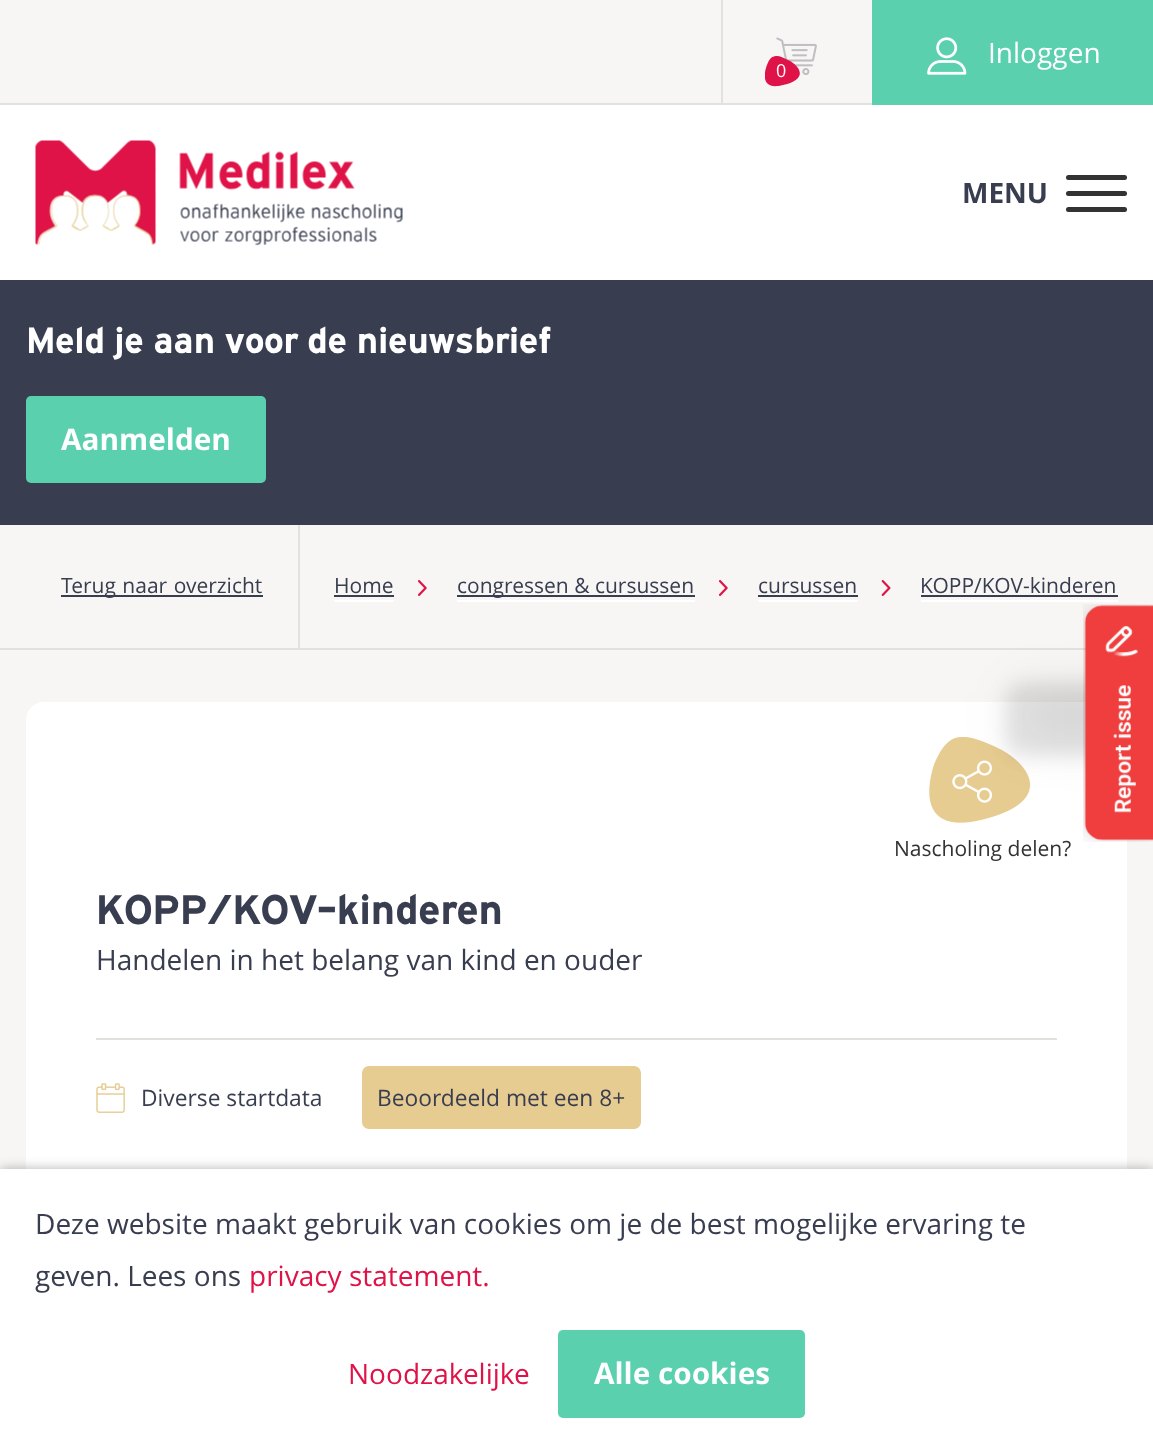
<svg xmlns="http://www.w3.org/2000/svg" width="1153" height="1445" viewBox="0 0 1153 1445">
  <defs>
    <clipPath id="clip1"><path d="M765 56h37v32H765z"/></clipPath>
  </defs>
  <rect width="100%" height="100%" fill="#fff"/>
  <path d="M0 525h1153v644H0z" fill="#f7f6f4"/>
  <path d="M0 0h872v103H0z" fill="#f7f6f4"/>
  <path d="M0 103h872v2H0z" fill="#e3e1dd"/>
  <path d="M721 0h2v105H721z" fill="#e3e1dd"/>
  <image x="776" y="37" width="41" height="38" href="img/1.png"/>
  <g clip-path="url(#clip1)">
    <path d="M767 65C767 65 756 92 783 85C810 79 799 65 788 60C777 54 771 54 767 65Z" fill="#df1347"/>
  </g>
  <path d="M872 0h281v105H872z" fill="#5bd0af"/>
  <image x="927" y="37" width="40" height="38" href="img/2.png"/>
  <image x="35" y="140" width="368" height="106" href="img/3.png"/>
  <rect x="1066" y="175" width="61" height="5" rx="2.5" fill="#333"/>
  <rect x="1066" y="191" width="61" height="5" rx="2.5" fill="#333"/>
  <rect x="1066" y="207" width="61" height="5" rx="2.5" fill="#333"/>
  <path d="M0 280h1153v245H0z" fill="#383d50"/>
  <rect x="26" y="396" width="240" height="87" rx="5" fill="#5bd0af"/>
  <path d="M0 648h1086v2H0z" fill="#e3e1dd"/>
  <path d="M298 525h2v123H298z" fill="#e3e1dd"/>
  <path d="M61 595h202v2H61z" fill="#383d50"/>
  <path d="M334 600h60v2H334z" fill="#fff"/>
  <path d="M334 595h60v2H334z" fill="#383d50"/>
  <image x="418" y="580" width="9" height="16" href="img/4.png"/>
  <path d="M457 600h238v2H457z" fill="#fff"/>
  <path d="M457 595h238v2H457z" fill="#383d50"/>
  <image x="719" y="580" width="9" height="16" href="img/4.png"/>
  <path d="M758 600h100v2H758z" fill="#fff"/>
  <path d="M758 595h100v2H758z" fill="#383d50"/>
  <image x="881" y="580" width="10" height="16" href="img/5.png"/>
  <path d="M921 600h197v2H921z" fill="#fff"/>
  <path d="M921 595h197v2H921z" fill="#383d50"/>
  <rect x="26" y="702" width="1101" height="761" rx="18" fill="#fff"/>
  <image x="929" y="737" width="102" height="86" href="img/7.png"/>
  <rect x="1005" y="683" width="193" height="73" rx="18" fill="#00000017" filter="blur(9px)"/>
  <rect x="1015" y="690" width="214" height="52" rx="7" fill="#00000017" filter="blur(26px)"/>
  <image x="1083" y="604" width="70" height="238" href="img/6.png"/>
  <path d="M96 1038h961v2H96z" fill="#e3e1dd"/>
  <image x="96" y="1083" width="29" height="30" href="img/8.png"/>
  <rect x="362" y="1066" width="279" height="63" rx="7" fill="#e7cc92"/>
  <path d="M0 1169h1153v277H0z" fill="#0000004d" filter="blur(6px)"/>
  <path d="M0 1169h1153v276H0z" fill="#fff"/>
  <rect x="558" y="1330" width="247" height="88" rx="5" fill="#5bd0af"/>
  <text x="776" y="77" font-family="Open Sans" font-size="18" fill="#fff">0</text>
  <text x="988" y="63" font-family="Open Sans" font-size="28" fill="#fff">Inloggen</text>
  <text x="962" y="203" font-family="Open Sans" font-size="28" font-weight="bold" fill="#383d50">MENU</text>
  <text x="26" y="353" font-family="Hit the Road" font-size="38.5" fill="#fff">Meld je aan voor de nieuwsbrief</text>
  <text x="61" y="450" font-family="Open Sans" font-size="29.75" font-weight="bold" fill="#fff">Aanmelden</text>
  <g font-family="Open Sans" font-size="21" fill="#383d50">
    <text x="61" y="593" word-spacing="1">Terug naar overzicht</text>
    <text x="334" y="593">Home</text>
    <text x="457" y="593">congressen &amp; cursussen</text>
    <text x="758" y="593">cursussen</text>
    <text x="920" y="593">KOPP/KOV-kinderen</text>
  </g>
  <text x="894" y="856" font-family="Open Sans" font-size="21" fill="#333">Nascholing delen?</text>
  <text x="96" y="924" font-family="Hit the Road" font-size="43.75" fill="#383d50">KOPP/KOV-kinderen</text>
  <text x="96" y="970" font-family="Open Sans" font-size="28" fill="#383d50">Handelen in het belang van kind en ouder</text>
  <g font-family="Open Sans" font-size="22.75" fill="#383d50">
    <text x="141" y="1106">Diverse startdata</text>
    <text x="377" y="1106">Beoordeeld met een 8+</text>
  </g>
  <g font-family="Open Sans" font-size="28" fill="#383d50">
    <text x="35" y="1234">Deze website maakt gebruik van cookies om je de best mogelijke ervaring te</text>
    <text x="35" y="1286">geven. Lees ons</text>
  </g>
  <g font-family="Open Sans" font-size="28" fill="#df1347">
    <text x="249" y="1286">privacy statement.</text>
    <text x="348" y="1384">Noodzakelijke</text>
  </g>
  <text x="594" y="1384" font-family="Open Sans" font-size="29.75" font-weight="bold" fill="#fff">Alle cookies</text>
</svg>
